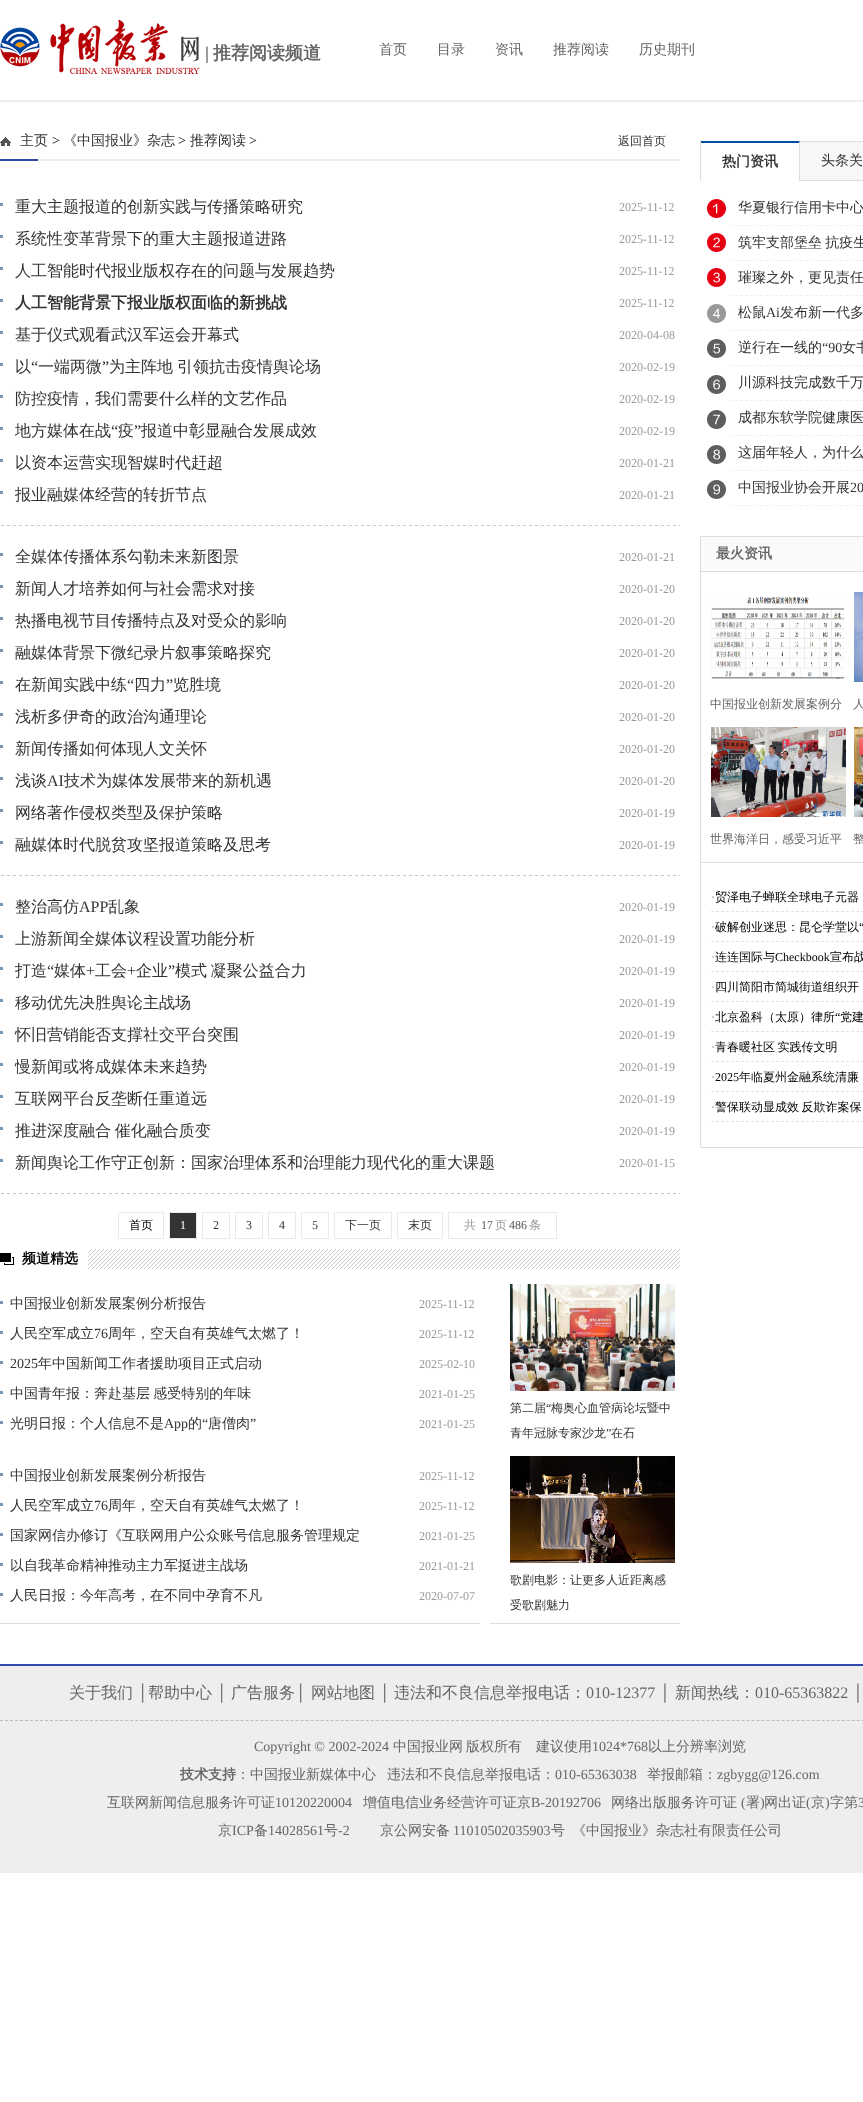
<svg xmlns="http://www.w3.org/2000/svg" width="863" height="2102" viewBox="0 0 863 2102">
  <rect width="100%" height="100%" fill="#fff"/>
  <path d="M0 100h863v2H0z" fill="#eee"/>
  <image x="0" y="20" width="200" height="54" href="img/1.png"/>
  <image x="0" y="159" width="680" height="2" href="img/2.png"/>
  <image x="0" y="137" width="11" height="9" href="img/3.png"/>
  <image x="1" y="525" width="679" height="1" href="img/4.png"/>
  <path d="M0 203h3v3H0z" fill="#7596b6"/>
  <path d="M0 235h3v3H0z" fill="#7596b6"/>
  <path d="M0 267h3v3H0z" fill="#7596b6"/>
  <path d="M0 299h3v3H0z" fill="#7596b6"/>
  <path d="M0 331h3v3H0z" fill="#7596b6"/>
  <path d="M0 363h3v3H0z" fill="#7596b6"/>
  <path d="M0 395h3v3H0z" fill="#7596b6"/>
  <path d="M0 427h3v3H0z" fill="#7596b6"/>
  <path d="M0 459h3v3H0z" fill="#7596b6"/>
  <path d="M0 491h3v3H0z" fill="#7596b6"/>
  <image x="1" y="875" width="679" height="1" href="img/4.png"/>
  <path d="M0 553h3v3H0z" fill="#7596b6"/>
  <path d="M0 585h3v3H0z" fill="#7596b6"/>
  <path d="M0 617h3v3H0z" fill="#7596b6"/>
  <path d="M0 649h3v3H0z" fill="#7596b6"/>
  <path d="M0 681h3v3H0z" fill="#7596b6"/>
  <path d="M0 713h3v3H0z" fill="#7596b6"/>
  <path d="M0 745h3v3H0z" fill="#7596b6"/>
  <path d="M0 777h3v3H0z" fill="#7596b6"/>
  <path d="M0 809h3v3H0z" fill="#7596b6"/>
  <path d="M0 841h3v3H0z" fill="#7596b6"/>
  <image x="1" y="1193" width="679" height="1" href="img/4.png"/>
  <path d="M0 903h3v3H0z" fill="#7596b6"/>
  <path d="M0 935h3v3H0z" fill="#7596b6"/>
  <path d="M0 967h3v3H0z" fill="#7596b6"/>
  <path d="M0 999h3v3H0z" fill="#7596b6"/>
  <path d="M0 1031h3v3H0z" fill="#7596b6"/>
  <path d="M0 1063h3v3H0z" fill="#7596b6"/>
  <path d="M0 1095h3v3H0z" fill="#7596b6"/>
  <path d="M0 1127h3v3H0z" fill="#7596b6"/>
  <path d="M0 1159h3v3H0z" fill="#7596b6"/>
  <path d="M118.5 1212.5h45v26H118.5z" fill="none" stroke="#e9e9e9"/>
  <path d="M169.5 1212.5h27v26H169.5z" fill="#333" stroke="#e9e9e9"/>
  <path d="M202.5 1212.5h27v26H202.5z" fill="none" stroke="#e9e9e9"/>
  <path d="M235.5 1212.5h27v26H235.5z" fill="none" stroke="#e9e9e9"/>
  <path d="M268.5 1212.5h27v26H268.5z" fill="none" stroke="#e9e9e9"/>
  <path d="M301.5 1212.5h27v26H301.5z" fill="none" stroke="#e9e9e9"/>
  <path d="M334.5 1212.5h57v26H334.5z" fill="none" stroke="#e9e9e9"/>
  <path d="M397.5 1212.5h45v26H397.5z" fill="none" stroke="#e9e9e9"/>
  <path d="M448.5 1212.5h108v26H448.5z" fill="none" stroke="#e9e9e9"/>
  <image x="88" y="1249" width="592" height="20" href="img/5.png"/>
  <image x="0" y="1253" width="14" height="12" href="img/6.png"/>
  <path d="M0 1623h480v1H0z" fill="#dedede"/>
  <path d="M0 1301h3v3H0z" fill="#7596b6"/>
  <path d="M0 1331h3v3H0z" fill="#7596b6"/>
  <path d="M0 1361h3v3H0z" fill="#7596b6"/>
  <path d="M0 1391h3v3H0z" fill="#7596b6"/>
  <path d="M0 1421h3v3H0z" fill="#7596b6"/>
  <path d="M0 1473h3v3H0z" fill="#7596b6"/>
  <path d="M0 1503h3v3H0z" fill="#7596b6"/>
  <path d="M0 1533h3v3H0z" fill="#7596b6"/>
  <path d="M0 1563h3v3H0z" fill="#7596b6"/>
  <path d="M0 1593h3v3H0z" fill="#7596b6"/>
  <path d="M490 1623h190v1H490z" fill="#dedede"/>
  <image x="510" y="1284" width="165" height="107" href="img/7.png"/>
  <image x="510" y="1456" width="165" height="107" href="img/8.png"/>
  <image x="707" y="199" width="19" height="300" href="img/9.png"/>
  <path d="M700 141h1v40H700z" fill="#dedede"/>
  <path d="M701 141H800L799 143H701Z" fill="#044f9f"/>
  <path d="M800 141V181H799V143Z" fill="#dedede"/>
  <path d="M800 142h63v38H800z" fill="#f7f7f7"/>
  <path d="M800 141h63v1H800z" fill="#dedede"/>
  <path d="M800 180h63v1H800z" fill="#dedede"/>
  <path d="M730 225.5H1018" fill="none" stroke="#eee" stroke-dasharray="3 2"/>
  <path d="M730 260.5H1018" fill="none" stroke="#eee" stroke-dasharray="3 2"/>
  <path d="M730 295.5H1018" fill="none" stroke="#eee" stroke-dasharray="3 2"/>
  <path d="M730 330.5H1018" fill="none" stroke="#eee" stroke-dasharray="3 2"/>
  <path d="M730 365.5H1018" fill="none" stroke="#eee" stroke-dasharray="3 2"/>
  <path d="M730 400.5H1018" fill="none" stroke="#eee" stroke-dasharray="3 2"/>
  <path d="M730 435.5H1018" fill="none" stroke="#eee" stroke-dasharray="3 2"/>
  <path d="M730 470.5H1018" fill="none" stroke="#eee" stroke-dasharray="3 2"/>
  <path d="M730 505.5H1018" fill="none" stroke="#eee" stroke-dasharray="3 2"/>
  <path d="M700.5 536.5h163v611H700.5z" fill="none" stroke="#dedede"/>
  <path d="M701 537h162v34H701z" fill="#fafafa"/>
  <path d="M701 571h162v1H701z" fill="#dedede"/>
  <path d="M701 862h162v1H701z" fill="#dedede"/>
  <image x="711" y="597" width="134" height="82" href="img/10.png"/>
  <image x="854" y="592" width="9" height="90" href="img/11.png"/>
  <image x="711" y="727" width="135" height="90" href="img/12.png"/>
  <image x="854" y="727" width="9" height="90" href="img/13.png"/>
  <path d="M711 911.5H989" fill="none" stroke="#e5e5e5" stroke-dasharray="3 2"/>
  <path d="M711 941.5H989" fill="none" stroke="#e5e5e5" stroke-dasharray="3 2"/>
  <path d="M711 971.5H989" fill="none" stroke="#e5e5e5" stroke-dasharray="3 2"/>
  <path d="M711 1001.5H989" fill="none" stroke="#e5e5e5" stroke-dasharray="3 2"/>
  <path d="M711 1031.5H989" fill="none" stroke="#e5e5e5" stroke-dasharray="3 2"/>
  <path d="M711 1061.5H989" fill="none" stroke="#e5e5e5" stroke-dasharray="3 2"/>
  <path d="M711 1091.5H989" fill="none" stroke="#e5e5e5" stroke-dasharray="3 2"/>
  <path d="M711 1121.5H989" fill="none" stroke="#e5e5e5" stroke-dasharray="3 2"/>
  <path d="M0 1666h863v207H0z" fill="#eee"/>
  <path d="M0 1664h863v2H0z" fill="#314aaf"/>
  <path d="M0 1720.5H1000" fill="none" stroke="#bbb" stroke-dasharray="3 2.01"/>
  <text x="205" y="59" font-family="Liberation Serif" font-size="18" font-weight="bold" fill="#666">|</text>
  <text x="213" y="59" font-family="WenQuanYi Zen Hei" font-size="18" font-weight="bold" fill="#666">推荐阅读频道</text>
  <g font-family="WenQuanYi Zen Hei" font-size="14" font-weight="500" fill="#666">
    <text x="379" y="54">首页</text>
    <text x="437" y="54">目录</text>
    <text x="495" y="54">资讯</text>
    <text x="553" y="54">推荐阅读</text>
    <text x="639" y="54">历史期刊</text>
  </g>
  <text x="20" y="145" font-family="WenQuanYi Zen Hei" font-size="14" font-weight="500" fill="#333">主页</text>
  <text x="52" y="145" font-family="Liberation Serif" font-size="14" fill="#000">&gt;</text>
  <text x="63" y="145" font-family="WenQuanYi Zen Hei" font-size="14" font-weight="500" fill="#333">《中国报业》杂志</text>
  <text x="178" y="145" font-family="Liberation Serif" font-size="14" fill="#000">&gt;</text>
  <text x="190" y="145" font-family="WenQuanYi Zen Hei" font-size="14" font-weight="500" fill="#333">推荐阅读</text>
  <text x="249" y="145" font-family="Liberation Serif" font-size="14" fill="#000">&gt;</text>
  <text x="618" y="145" font-family="WenQuanYi Zen Hei" font-size="12" font-weight="500" fill="#333">返回首页</text>
  <text x="15" y="212" font-family="WenQuanYi Zen Hei" font-size="16" font-weight="500" fill="#333">重大主题报道的创新实践与传播策略研究</text>
  <text x="619" y="211" font-family="Liberation Serif" font-size="12" fill="#999">2025-11-12</text>
  <text x="15" y="244" font-family="WenQuanYi Zen Hei" font-size="16" font-weight="500" fill="#333">系统性变革背景下的重大主题报道进路</text>
  <text x="619" y="243" font-family="Liberation Serif" font-size="12" fill="#999">2025-11-12</text>
  <text x="15" y="276" font-family="WenQuanYi Zen Hei" font-size="16" font-weight="500" fill="#333">人工智能时代报业版权存在的问题与发展趋势</text>
  <text x="619" y="275" font-family="Liberation Serif" font-size="12" fill="#999">2025-11-12</text>
  <text x="15" y="308" font-family="WenQuanYi Zen Hei" font-size="16" font-weight="bold" fill="#333">人工智能背景下报业版权面临的新挑战</text>
  <text x="619" y="307" font-family="Liberation Serif" font-size="12" fill="#999">2025-11-12</text>
  <text x="15" y="340" font-family="WenQuanYi Zen Hei" font-size="16" font-weight="500" fill="#333">基于仪式观看武汉军运会开幕式</text>
  <text x="619" y="339" font-family="Liberation Serif" font-size="12" fill="#999">2020-04-08</text>
  <text x="15" y="372" font-family="WenQuanYi Zen Hei" font-size="16" font-weight="500" fill="#333">以</text>
  <text x="31" y="372" font-family="Liberation Serif" font-size="16" fill="#333">“</text>
  <text x="38" y="372" font-family="WenQuanYi Zen Hei" font-size="16" font-weight="500" fill="#333">一端两微</text>
  <text x="102" y="372" font-family="Liberation Serif" font-size="16" fill="#333">”</text>
  <g font-family="WenQuanYi Zen Hei" font-size="16" font-weight="500" fill="#333">
    <text x="109" y="372">为主阵地</text>
    <text x="177" y="372">引领抗击疫情舆论场</text>
  </g>
  <text x="619" y="371" font-family="Liberation Serif" font-size="12" fill="#999">2020-02-19</text>
  <text x="15" y="404" font-family="WenQuanYi Zen Hei" font-size="16" font-weight="500" fill="#333">防控疫情，我们需要什么样的文艺作品</text>
  <text x="619" y="403" font-family="Liberation Serif" font-size="12" fill="#999">2020-02-19</text>
  <text x="15" y="436" font-family="WenQuanYi Zen Hei" font-size="16" font-weight="500" fill="#333">地方媒体在战</text>
  <text x="111" y="436" font-family="Liberation Serif" font-size="16" fill="#333">“</text>
  <text x="118" y="436" font-family="WenQuanYi Zen Hei" font-size="16" font-weight="500" fill="#333">疫</text>
  <text x="134" y="436" font-family="Liberation Serif" font-size="16" fill="#333">”</text>
  <text x="141" y="436" font-family="WenQuanYi Zen Hei" font-size="16" font-weight="500" fill="#333">报道中彰显融合发展成效</text>
  <text x="619" y="435" font-family="Liberation Serif" font-size="12" fill="#999">2020-02-19</text>
  <text x="15" y="468" font-family="WenQuanYi Zen Hei" font-size="16" font-weight="500" fill="#333">以资本运营实现智媒时代赶超</text>
  <text x="619" y="467" font-family="Liberation Serif" font-size="12" fill="#999">2020-01-21</text>
  <text x="15" y="500" font-family="WenQuanYi Zen Hei" font-size="16" font-weight="500" fill="#333">报业融媒体经营的转折节点</text>
  <text x="619" y="499" font-family="Liberation Serif" font-size="12" fill="#999">2020-01-21</text>
  <text x="15" y="562" font-family="WenQuanYi Zen Hei" font-size="16" font-weight="500" fill="#333">全媒体传播体系勾勒未来新图景</text>
  <text x="619" y="561" font-family="Liberation Serif" font-size="12" fill="#999">2020-01-21</text>
  <text x="15" y="594" font-family="WenQuanYi Zen Hei" font-size="16" font-weight="500" fill="#333">新闻人才培养如何与社会需求对接</text>
  <text x="619" y="593" font-family="Liberation Serif" font-size="12" fill="#999">2020-01-20</text>
  <text x="15" y="626" font-family="WenQuanYi Zen Hei" font-size="16" font-weight="500" fill="#333">热播电视节目传播特点及对受众的影响</text>
  <text x="619" y="625" font-family="Liberation Serif" font-size="12" fill="#999">2020-01-20</text>
  <text x="15" y="658" font-family="WenQuanYi Zen Hei" font-size="16" font-weight="500" fill="#333">融媒体背景下微纪录片叙事策略探究</text>
  <text x="619" y="657" font-family="Liberation Serif" font-size="12" fill="#999">2020-01-20</text>
  <text x="15" y="690" font-family="WenQuanYi Zen Hei" font-size="16" font-weight="500" fill="#333">在新闻实践中练</text>
  <text x="127" y="690" font-family="Liberation Serif" font-size="16" fill="#333">“</text>
  <text x="134" y="690" font-family="WenQuanYi Zen Hei" font-size="16" font-weight="500" fill="#333">四力</text>
  <text x="166" y="690" font-family="Liberation Serif" font-size="16" fill="#333">”</text>
  <text x="173" y="690" font-family="WenQuanYi Zen Hei" font-size="16" font-weight="500" fill="#333">览胜境</text>
  <text x="619" y="689" font-family="Liberation Serif" font-size="12" fill="#999">2020-01-20</text>
  <text x="15" y="722" font-family="WenQuanYi Zen Hei" font-size="16" font-weight="500" fill="#333">浅析多伊奇的政治沟通理论</text>
  <text x="619" y="721" font-family="Liberation Serif" font-size="12" fill="#999">2020-01-20</text>
  <text x="15" y="754" font-family="WenQuanYi Zen Hei" font-size="16" font-weight="500" fill="#333">新闻传播如何体现人文关怀</text>
  <text x="619" y="753" font-family="Liberation Serif" font-size="12" fill="#999">2020-01-20</text>
  <text x="15" y="786" font-family="WenQuanYi Zen Hei" font-size="16" font-weight="500" fill="#333">浅谈</text>
  <text x="47" y="786" font-family="Liberation Serif" font-size="16" fill="#333">AI</text>
  <text x="64" y="786" font-family="WenQuanYi Zen Hei" font-size="16" font-weight="500" fill="#333">技术为媒体发展带来的新机遇</text>
  <text x="619" y="785" font-family="Liberation Serif" font-size="12" fill="#999">2020-01-20</text>
  <text x="15" y="818" font-family="WenQuanYi Zen Hei" font-size="16" font-weight="500" fill="#333">网络著作侵权类型及保护策略</text>
  <text x="619" y="817" font-family="Liberation Serif" font-size="12" fill="#999">2020-01-19</text>
  <text x="15" y="850" font-family="WenQuanYi Zen Hei" font-size="16" font-weight="500" fill="#333">融媒体时代脱贫攻坚报道策略及思考</text>
  <text x="619" y="849" font-family="Liberation Serif" font-size="12" fill="#999">2020-01-19</text>
  <text x="15" y="912" font-family="WenQuanYi Zen Hei" font-size="16" font-weight="500" fill="#333">整治高仿</text>
  <text x="79" y="912" font-family="Liberation Serif" font-size="16" fill="#333">APP</text>
  <text x="108" y="912" font-family="WenQuanYi Zen Hei" font-size="16" font-weight="500" fill="#333">乱象</text>
  <text x="619" y="911" font-family="Liberation Serif" font-size="12" fill="#999">2020-01-19</text>
  <text x="15" y="944" font-family="WenQuanYi Zen Hei" font-size="16" font-weight="500" fill="#333">上游新闻全媒体议程设置功能分析</text>
  <text x="619" y="943" font-family="Liberation Serif" font-size="12" fill="#999">2020-01-19</text>
  <text x="15" y="976" font-family="WenQuanYi Zen Hei" font-size="16" font-weight="500" fill="#333">打造</text>
  <text x="47" y="976" font-family="Liberation Serif" font-size="16" fill="#333">“</text>
  <text x="54" y="976" font-family="WenQuanYi Zen Hei" font-size="16" font-weight="500" fill="#333">媒体</text>
  <text x="86" y="976" font-family="Liberation Serif" font-size="16" fill="#333">+</text>
  <text x="95" y="976" font-family="WenQuanYi Zen Hei" font-size="16" font-weight="500" fill="#333">工会</text>
  <text x="127" y="976" font-family="Liberation Serif" font-size="16" fill="#333">+</text>
  <text x="136" y="976" font-family="WenQuanYi Zen Hei" font-size="16" font-weight="500" fill="#333">企业</text>
  <text x="168" y="976" font-family="Liberation Serif" font-size="16" fill="#333">”</text>
  <text x="175" y="976" word-spacing="-1" font-family="WenQuanYi Zen Hei" font-size="16" font-weight="500" fill="#333">模式 凝聚公益合力</text>
  <text x="619" y="975" font-family="Liberation Serif" font-size="12" fill="#999">2020-01-19</text>
  <text x="15" y="1008" font-family="WenQuanYi Zen Hei" font-size="16" font-weight="500" fill="#333">移动优先决胜舆论主战场</text>
  <text x="619" y="1007" font-family="Liberation Serif" font-size="12" fill="#999">2020-01-19</text>
  <text x="15" y="1040" font-family="WenQuanYi Zen Hei" font-size="16" font-weight="500" fill="#333">怀旧营销能否支撑社交平台突围</text>
  <text x="619" y="1039" font-family="Liberation Serif" font-size="12" fill="#999">2020-01-19</text>
  <text x="15" y="1072" font-family="WenQuanYi Zen Hei" font-size="16" font-weight="500" fill="#333">慢新闻或将成媒体未来趋势</text>
  <text x="619" y="1071" font-family="Liberation Serif" font-size="12" fill="#999">2020-01-19</text>
  <text x="15" y="1104" font-family="WenQuanYi Zen Hei" font-size="16" font-weight="500" fill="#333">互联网平台反垄断任重道远</text>
  <text x="619" y="1103" font-family="Liberation Serif" font-size="12" fill="#999">2020-01-19</text>
  <text x="15" y="1136" word-spacing="-1" font-family="WenQuanYi Zen Hei" font-size="16" font-weight="500" fill="#333">推进深度融合 催化融合质变</text>
  <text x="619" y="1135" font-family="Liberation Serif" font-size="12" fill="#999">2020-01-19</text>
  <text x="15" y="1168" font-family="WenQuanYi Zen Hei" font-size="16" font-weight="500" fill="#333">新闻舆论工作守正创新：国家治理体系和治理能力现代化的重大课题</text>
  <text x="619" y="1167" font-family="Liberation Serif" font-size="12" fill="#999">2020-01-15</text>
  <text x="129" y="1229" font-family="WenQuanYi Zen Hei" font-size="12" font-weight="500" fill="#000">首页</text>
  <text x="180" y="1229" font-family="Liberation Serif" font-size="12" fill="#fff">1</text>
  <g font-family="Liberation Serif" font-size="12" fill="#333">
    <text x="213" y="1229">2</text>
    <text x="246" y="1229">3</text>
    <text x="279" y="1229">4</text>
    <text x="312" y="1229">5</text>
  </g>
  <g font-family="WenQuanYi Zen Hei" font-size="12" font-weight="500" fill="#333">
    <text x="345" y="1229">下一页</text>
    <text x="408" y="1229">末页</text>
  </g>
  <text x="464" y="1229" font-family="WenQuanYi Zen Hei" font-size="12" font-weight="500" fill="#999">共</text>
  <text x="481" y="1229" font-family="Liberation Serif" font-size="12" fill="#555">17</text>
  <text x="495" y="1229" font-family="WenQuanYi Zen Hei" font-size="12" font-weight="500" fill="#999">页</text>
  <text x="509" y="1229" font-family="Liberation Serif" font-size="12" fill="#555">486</text>
  <text x="529" y="1229" font-family="WenQuanYi Zen Hei" font-size="12" font-weight="500" fill="#999">条</text>
  <text x="22" y="1263" font-family="WenQuanYi Zen Hei" font-size="14" font-weight="bold" fill="#000">频道精选</text>
  <text x="10" y="1308" font-family="WenQuanYi Zen Hei" font-size="14" font-weight="500" fill="#333">中国报业创新发展案例分析报告</text>
  <text x="419" y="1308" font-family="Liberation Serif" font-size="12" fill="#999">2025-11-12</text>
  <text x="10" y="1338" font-family="WenQuanYi Zen Hei" font-size="14" font-weight="500" fill="#333">人民空军成立</text>
  <text x="94" y="1338" font-family="Liberation Serif" font-size="14" fill="#333">76</text>
  <text x="108" y="1338" font-family="WenQuanYi Zen Hei" font-size="14" font-weight="500" fill="#333">周年，空天自有英雄气太燃了！</text>
  <text x="419" y="1338" font-family="Liberation Serif" font-size="12" fill="#999">2025-11-12</text>
  <text x="10" y="1368" font-family="Liberation Serif" font-size="14" fill="#333">2025</text>
  <text x="38" y="1368" font-family="WenQuanYi Zen Hei" font-size="14" font-weight="500" fill="#333">年中国新闻工作者援助项目正式启动</text>
  <text x="419" y="1368" font-family="Liberation Serif" font-size="12" fill="#999">2025-02-10</text>
  <text x="10" y="1398" word-spacing="-1" font-family="WenQuanYi Zen Hei" font-size="14" font-weight="500" fill="#333">中国青年报：奔赴基层 感受特别的年味</text>
  <text x="419" y="1398" font-family="Liberation Serif" font-size="12" fill="#999">2021-01-25</text>
  <text x="10" y="1428" font-family="WenQuanYi Zen Hei" font-size="14" font-weight="500" fill="#333">光明日报：个人信息不是</text>
  <text x="164" y="1428" font-family="Liberation Serif" font-size="14" fill="#333">App</text>
  <text x="188" y="1428" font-family="WenQuanYi Zen Hei" font-size="14" font-weight="500" fill="#333">的</text>
  <text x="202" y="1428" font-family="Liberation Serif" font-size="14" fill="#333">“</text>
  <text x="208" y="1428" font-family="WenQuanYi Zen Hei" font-size="14" font-weight="500" fill="#333">唐僧肉</text>
  <text x="250" y="1428" font-family="Liberation Serif" font-size="14" fill="#333">”</text>
  <text x="419" y="1428" font-family="Liberation Serif" font-size="12" fill="#999">2021-01-25</text>
  <text x="10" y="1480" font-family="WenQuanYi Zen Hei" font-size="14" font-weight="500" fill="#333">中国报业创新发展案例分析报告</text>
  <text x="419" y="1480" font-family="Liberation Serif" font-size="12" fill="#999">2025-11-12</text>
  <text x="10" y="1510" font-family="WenQuanYi Zen Hei" font-size="14" font-weight="500" fill="#333">人民空军成立</text>
  <text x="94" y="1510" font-family="Liberation Serif" font-size="14" fill="#333">76</text>
  <text x="108" y="1510" font-family="WenQuanYi Zen Hei" font-size="14" font-weight="500" fill="#333">周年，空天自有英雄气太燃了！</text>
  <text x="419" y="1510" font-family="Liberation Serif" font-size="12" fill="#999">2025-11-12</text>
  <text x="10" y="1540" font-family="WenQuanYi Zen Hei" font-size="14" font-weight="500" fill="#333">国家网信办修订《互联网用户公众账号信息服务管理规定</text>
  <text x="419" y="1540" font-family="Liberation Serif" font-size="12" fill="#999">2021-01-25</text>
  <text x="10" y="1570" font-family="WenQuanYi Zen Hei" font-size="14" font-weight="500" fill="#333">以自我革命精神推动主力军挺进主战场</text>
  <text x="419" y="1570" font-family="Liberation Serif" font-size="12" fill="#999">2021-01-21</text>
  <text x="10" y="1600" font-family="WenQuanYi Zen Hei" font-size="14" font-weight="500" fill="#333">人民日报：今年高考，在不同中孕育不凡</text>
  <text x="419" y="1600" font-family="Liberation Serif" font-size="12" fill="#999">2020-07-07</text>
  <text x="510" y="1412" font-family="WenQuanYi Zen Hei" font-size="12" font-weight="500" fill="#333">第二届</text>
  <text x="546" y="1412" font-family="Liberation Serif" font-size="12" fill="#333">“</text>
  <g font-family="WenQuanYi Zen Hei" font-size="12" font-weight="500" fill="#333">
    <text x="551" y="1412">梅奥心血管病论坛暨中</text>
    <text x="510" y="1437">青年冠脉专家沙龙</text>
  </g>
  <text x="606" y="1437" font-family="Liberation Serif" font-size="12" fill="#333">”</text>
  <g font-family="WenQuanYi Zen Hei" font-size="12" font-weight="500" fill="#333">
    <text x="611" y="1437">在石</text>
    <text x="510" y="1584">歌剧电影：让更多人近距离感</text>
    <text x="510" y="1609">受歌剧魅力</text>
  </g>
  <text x="722" y="166" font-family="WenQuanYi Zen Hei" font-size="14" font-weight="bold" fill="#333">热门资讯</text>
  <g font-family="WenQuanYi Zen Hei" font-size="14" font-weight="500" fill="#333">
    <text x="821" y="165">头条关</text>
    <text x="738" y="212">华夏银行信用卡中心</text>
    <text x="738" y="247" word-spacing="-1">筑牢支部堡垒 抗疫生</text>
    <text x="738" y="282">璀璨之外，更见责任</text>
    <text x="738" y="317">松鼠</text>
  </g>
  <text x="766" y="317" font-family="Liberation Serif" font-size="14" fill="#333">Ai</text>
  <g font-family="WenQuanYi Zen Hei" font-size="14" font-weight="500" fill="#333">
    <text x="780" y="317">发布新一代多</text>
    <text x="738" y="352">逆行在一线的</text>
  </g>
  <text x="822" y="352" font-family="Liberation Serif" font-size="14" fill="#333">“90</text>
  <g font-family="WenQuanYi Zen Hei" font-size="14" font-weight="500" fill="#333">
    <text x="842" y="352">女书</text>
    <text x="738" y="387">川源科技完成数千万</text>
    <text x="738" y="422">成都东软学院健康医</text>
    <text x="738" y="457">这届年轻人，为什么</text>
    <text x="738" y="492">中国报业协会开展</text>
  </g>
  <text x="850" y="492" font-family="Liberation Serif" font-size="14" fill="#333">20</text>
  <text x="716" y="558" font-family="WenQuanYi Zen Hei" font-size="14" font-weight="bold" fill="#666">最火资讯</text>
  <g font-family="WenQuanYi Zen Hei" font-size="12" font-weight="500" fill="#666">
    <text x="710" y="708">中国报业创新发展案例分</text>
    <text x="853" y="708">人</text>
    <text x="710" y="843">世界海洋日，感受习近平</text>
    <text x="853" y="843">整</text>
  </g>
  <text x="711" y="901" font-family="Liberation Serif" font-size="12" fill="#8e8e8e">·</text>
  <text x="715" y="901" font-family="WenQuanYi Zen Hei" font-size="12" font-weight="500" fill="#000">贸泽电子蝉联全球电子元器</text>
  <text x="711" y="931" font-family="Liberation Serif" font-size="12" fill="#8e8e8e">·</text>
  <text x="715" y="931" font-family="WenQuanYi Zen Hei" font-size="12" font-weight="500" fill="#000">破解创业迷思：昆仑学堂以</text>
  <text x="859" y="931" font-family="Liberation Serif" font-size="12" fill="#000">“</text>
  <text x="711" y="961" font-family="Liberation Serif" font-size="12" fill="#8e8e8e">·</text>
  <text x="715" y="961" font-family="WenQuanYi Zen Hei" font-size="12" font-weight="500" fill="#000">连连国际与</text>
  <text x="775" y="961" font-family="Liberation Serif" font-size="12" fill="#000">Checkbook</text>
  <text x="830" y="961" font-family="WenQuanYi Zen Hei" font-size="12" font-weight="500" fill="#000">宣布战</text>
  <text x="711" y="991" font-family="Liberation Serif" font-size="12" fill="#8e8e8e">·</text>
  <text x="715" y="991" font-family="WenQuanYi Zen Hei" font-size="12" font-weight="500" fill="#000">四川简阳市简城街道组织开</text>
  <text x="711" y="1021" font-family="Liberation Serif" font-size="12" fill="#8e8e8e">·</text>
  <text x="715" y="1021" font-family="WenQuanYi Zen Hei" font-size="12" font-weight="500" fill="#000">北京盈科（太原）律所</text>
  <text x="835" y="1021" font-family="Liberation Serif" font-size="12" fill="#000">“</text>
  <text x="840" y="1021" font-family="WenQuanYi Zen Hei" font-size="12" font-weight="500" fill="#000">党建</text>
  <text x="711" y="1051" font-family="Liberation Serif" font-size="12" fill="#8e8e8e">·</text>
  <text x="715" y="1051" word-spacing="-1" font-family="WenQuanYi Zen Hei" font-size="12" font-weight="500" fill="#000">青春暖社区 实践传文明</text>
  <text x="711" y="1081" font-family="Liberation Serif" font-size="12" fill="#8e8e8e">·</text>
  <text x="715" y="1081" font-family="Liberation Serif" font-size="12" fill="#000">2025</text>
  <text x="739" y="1081" font-family="WenQuanYi Zen Hei" font-size="12" font-weight="500" fill="#000">年临夏州金融系统清廉</text>
  <text x="711" y="1111" font-family="Liberation Serif" font-size="12" fill="#8e8e8e">·</text>
  <text x="715" y="1111" word-spacing="-1" font-family="WenQuanYi Zen Hei" font-size="12" font-weight="500" fill="#000">警保联动显成效 反欺诈案保</text>
  <text x="69" y="1698" font-family="WenQuanYi Zen Hei" font-size="16" font-weight="500" fill="#666">关于我们</text>
  <text x="137" y="1698" font-family="Liberation Serif" font-size="16" fill="#666">│</text>
  <text x="148" y="1698" font-family="WenQuanYi Zen Hei" font-size="16" font-weight="500" fill="#666">帮助中心</text>
  <text x="216" y="1698" font-family="Liberation Serif" font-size="16" fill="#666">│</text>
  <text x="231" y="1698" font-family="WenQuanYi Zen Hei" font-size="16" font-weight="500" fill="#666">广告服务</text>
  <text x="295" y="1698" font-family="Liberation Serif" font-size="16" fill="#666">│</text>
  <text x="311" y="1698" font-family="WenQuanYi Zen Hei" font-size="16" font-weight="500" fill="#666">网站地图</text>
  <text x="379" y="1698" font-family="Liberation Serif" font-size="16" fill="#666">│</text>
  <text x="394" y="1698" font-family="WenQuanYi Zen Hei" font-size="16" font-weight="500" fill="#666">违法和不良信息举报电话：</text>
  <text x="586" y="1698" font-family="Liberation Serif" font-size="16" fill="#666">010-12377 │</text>
  <text x="675" y="1698" font-family="WenQuanYi Zen Hei" font-size="16" font-weight="500" fill="#666">新闻热线：</text>
  <text x="755" y="1698" font-family="Liberation Serif" font-size="16" fill="#666">010-65363822 │</text>
  <text x="254" y="1751" font-family="Liberation Serif" font-size="14" fill="#666">Copyright © 2002-2024</text>
  <g font-family="WenQuanYi Zen Hei" font-size="14" font-weight="500" fill="#666">
    <text x="393" y="1751">中国报业网</text>
    <text x="466" y="1751">版权所有</text>
    <text x="536" y="1751">建议使用</text>
  </g>
  <text x="592" y="1751" font-family="Liberation Serif" font-size="14" fill="#666">1024*768</text>
  <text x="648" y="1751" font-family="WenQuanYi Zen Hei" font-size="14" font-weight="500" fill="#666">以上分辨率浏览</text>
  <text x="180" y="1779" font-family="WenQuanYi Zen Hei" font-size="14" font-weight="bold" fill="#666">技术支持</text>
  <g font-family="WenQuanYi Zen Hei" font-size="14" font-weight="500" fill="#666">
    <text x="236" y="1779">：中国报业新媒体中心</text>
    <text x="387" y="1779">违法和不良信息举报电话：</text>
  </g>
  <text x="555" y="1779" font-family="Liberation Serif" font-size="14" fill="#666">010-65363038</text>
  <text x="647" y="1779" font-family="WenQuanYi Zen Hei" font-size="14" font-weight="500" fill="#666">举报邮箱：</text>
  <text x="717" y="1779" font-family="Liberation Serif" font-size="14" fill="#666">zgbygg@126.com</text>
  <g font-family="WenQuanYi Zen Hei" font-size="14" font-weight="500" fill="#666">
    <text x="107" y="1807">互联网新闻信息服务许可证</text>
    <text x="611" y="1807">网络出版服务许可证</text>
  </g>
  <text x="741" y="1807" font-family="Liberation Serif" font-size="14" fill="#666">(</text>
  <text x="746" y="1807" font-family="WenQuanYi Zen Hei" font-size="14" font-weight="500" fill="#666">署</text>
  <text x="760" y="1807" font-family="Liberation Serif" font-size="14" fill="#666">)</text>
  <text x="764" y="1807" font-family="WenQuanYi Zen Hei" font-size="14" font-weight="500" fill="#666">网出证</text>
  <text x="806" y="1807" font-family="Liberation Serif" font-size="14" fill="#666">(</text>
  <text x="811" y="1807" font-family="WenQuanYi Zen Hei" font-size="14" font-weight="500" fill="#666">京</text>
  <text x="825" y="1807" font-family="Liberation Serif" font-size="14" fill="#666">)</text>
  <text x="830" y="1807" font-family="WenQuanYi Zen Hei" font-size="14" font-weight="500" fill="#666">字第</text>
  <text x="858" y="1807" font-family="Liberation Serif" font-size="14" fill="#666">3</text>
  <text x="218" y="1835" font-family="WenQuanYi Zen Hei" font-size="14" font-weight="500" fill="#666">京</text>
  <text x="232" y="1835" font-family="Liberation Serif" font-size="14" fill="#666">ICP</text>
  <text x="254" y="1835" font-family="WenQuanYi Zen Hei" font-size="14" font-weight="500" fill="#666">备</text>
  <text x="268" y="1835" font-family="Liberation Serif" font-size="14" fill="#666">14028561</text>
  <text x="324" y="1835" font-family="WenQuanYi Zen Hei" font-size="14" font-weight="500" fill="#666">号</text>
  <text x="338" y="1835" font-family="Liberation Serif" font-size="14" fill="#666">-2</text>
  <text x="380" y="1835" font-family="WenQuanYi Zen Hei" font-size="14" font-weight="500" fill="#666">京公网安备</text>
  <text x="453" y="1835" font-family="Liberation Serif" font-size="14" fill="#666">11010502035903</text>
  <g font-family="WenQuanYi Zen Hei" font-size="14" font-weight="500" fill="#666">
    <text x="551" y="1835">号</text>
    <text x="572" y="1835">《中国报业》杂志社有限责任公司</text>
  </g>
  <text x="275" y="1807" font-family="Liberation Serif" font-size="14" fill="#666">10120220004</text>
  <text x="363" y="1807" font-family="WenQuanYi Zen Hei" font-size="14" font-weight="500" fill="#666">增值电信业务经营许可证京</text>
  <text x="531" y="1807" font-family="Liberation Serif" font-size="14" fill="#666">B-20192706</text>
</svg>
